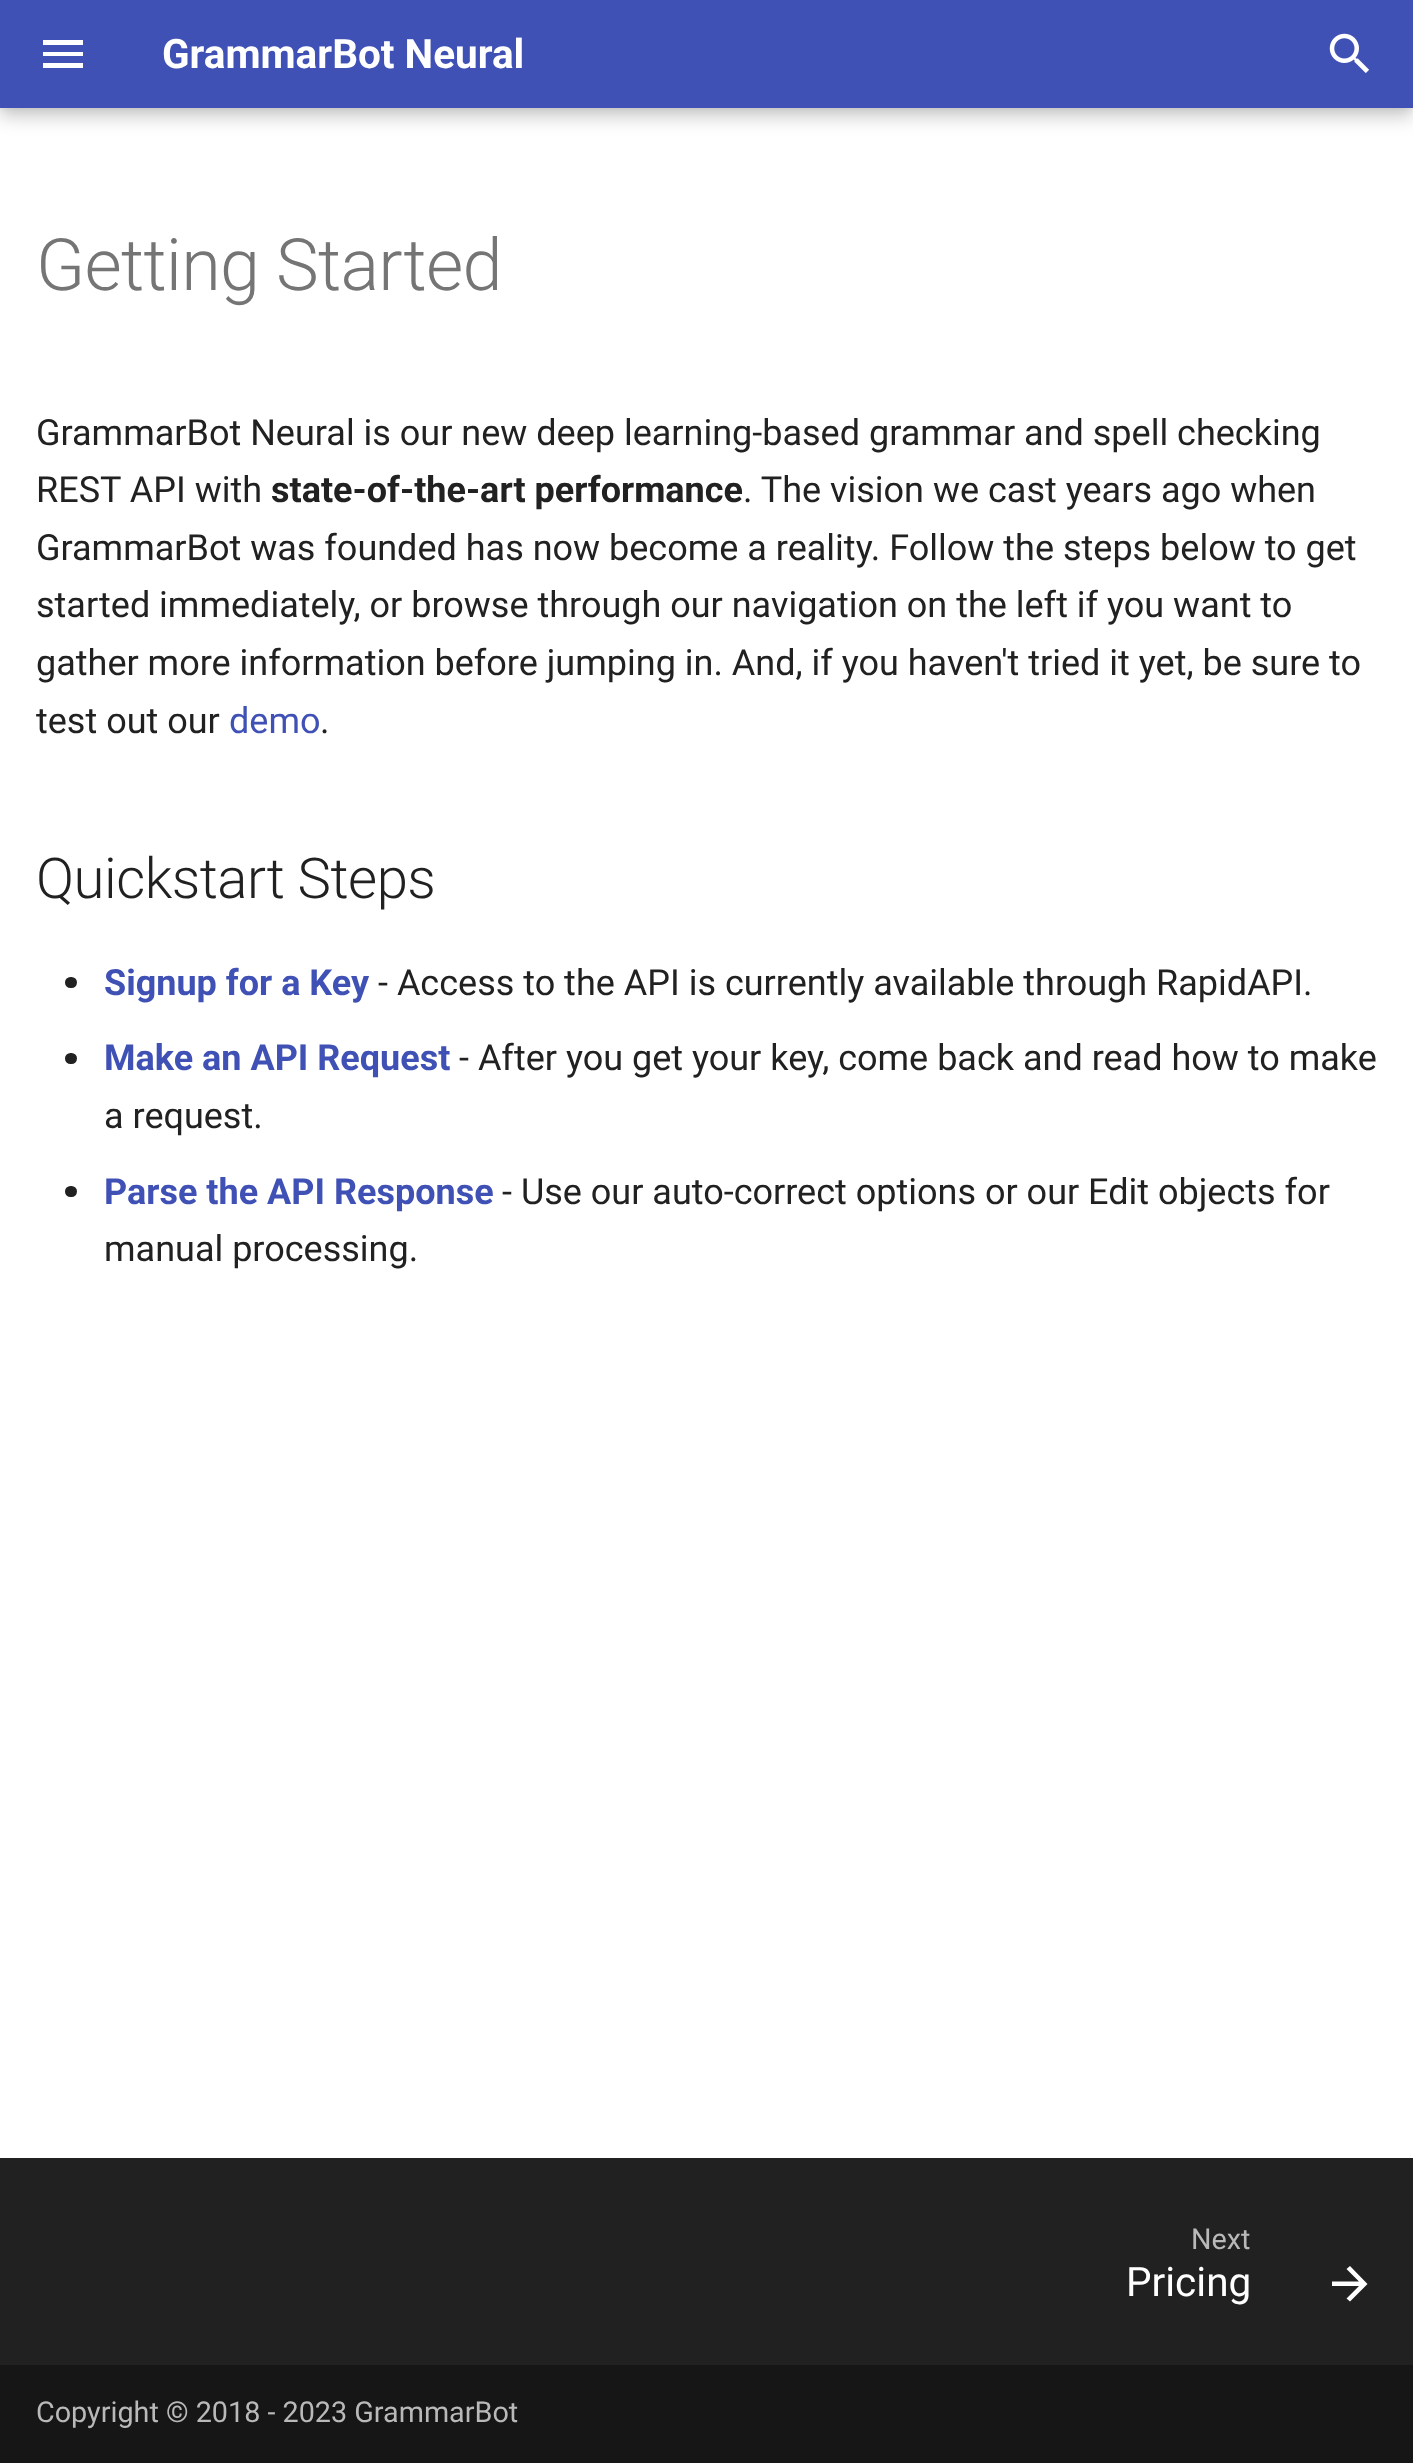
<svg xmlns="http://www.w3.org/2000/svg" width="1413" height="2463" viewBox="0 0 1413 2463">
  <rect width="100%" height="100%" fill="#fff"/>
  <path d="M0 9h1413v108H0z" fill="#00000033" filter="blur(9px)"/>
  <path d="M0 0h1413v108H0z" fill="#0000001a" filter="blur(4.5px)"/>
  <path d="M0 0h1413v108H0z" fill="#4051b5"/>
  <path d="M43 40H83V45H43V40M43 52H83V56H43V52M43 63H83V68H43Z" fill="#fff"/>
  <image x="1329" y="33" width="40" height="40" href="img/1.png"/>
  <rect x="65" y="977" width="12" height="11" rx="5.5" fill="#212121"/>
  <rect x="65" y="1053" width="12" height="11" rx="5.5" fill="#212121"/>
  <rect x="65" y="1186" width="12" height="11" rx="5.5" fill="#212121"/>
  <path d="M0 2158h1413v207H0z" fill="#212121"/>
  <path d="M1332 2281.5V2286H1359L1346.5 2298.5L1350 2301.5L1367.5 2284L1350 2266L1346.5 2269L1359 2281.5Z" fill="#fff"/>
  <path d="M0 2365h1413v98H0z" fill="#161616"/>
  <text x="162" y="68" font-family="Roboto" font-size="40.5" font-weight="bold" fill="#fff">GrammarBot Neural</text>
  <text x="36" y="290" font-family="Roboto" font-size="72" font-weight="300" letter-spacing="-0.75" fill="#757575">Getting Started</text>
  <g font-family="Roboto" font-size="36" fill="#212121">
    <text x="36" y="445">GrammarBot Neural is our new deep learning-based grammar and spell checking</text>
    <text x="36" y="502">REST API with</text>
  </g>
  <text x="271" y="502" font-family="Roboto" font-size="36" font-weight="bold" fill="#212121">state-of-the-art performance</text>
  <g font-family="Roboto" font-size="36" fill="#212121">
    <text x="743" y="502">. The vision we cast years ago when</text>
    <text x="36" y="560">GrammarBot was founded has now become a reality. Follow the steps below to get</text>
    <text x="36" y="617">started immediately, or browse through our navigation on the left if you want to</text>
    <text x="36" y="675">gather more information before jumping in. And, if you haven't tried it yet, be sure to</text>
    <text x="36" y="733">test out our</text>
  </g>
  <text x="229" y="733" font-family="Roboto" font-size="36" fill="#4051b5">demo</text>
  <text x="320" y="733" font-family="Roboto" font-size="36" fill="#212121">.</text>
  <text x="36" y="898" font-family="Roboto" font-size="56.25" font-weight="300" letter-spacing="-0.5" fill="#212121">Quickstart Steps</text>
  <text x="104" y="995" font-family="Roboto" font-size="36" font-weight="bold" fill="#4051b5">Signup for a Key</text>
  <text x="378" y="995" font-family="Roboto" font-size="36" fill="#212121">- Access to the API is currently available through RapidAPI.</text>
  <text x="104" y="1070" font-family="Roboto" font-size="36" font-weight="bold" fill="#4051b5">Make an API Request</text>
  <g font-family="Roboto" font-size="36" fill="#212121">
    <text x="459" y="1070">- After you get your key, come back and read how to make</text>
    <text x="104" y="1128">a request.</text>
  </g>
  <text x="104" y="1204" font-family="Roboto" font-size="36" font-weight="bold" fill="#4051b5">Parse the API Response</text>
  <g font-family="Roboto" font-size="36" fill="#212121">
    <text x="502" y="1204">- Use our auto-correct options or our Edit objects for</text>
    <text x="104" y="1261">manual processing.</text>
  </g>
  <text x="1191" y="2249" font-family="Roboto" font-size="28.75" fill="#b9b9b9">Next</text>
  <text x="1126" y="2296" font-family="Roboto" font-size="40.5" fill="#fff">Pricing</text>
  <text x="36" y="2422" font-family="Roboto" font-size="28.75" fill="#b9b9b9">Copyright © 2018 - 2023 GrammarBot</text>
</svg>
